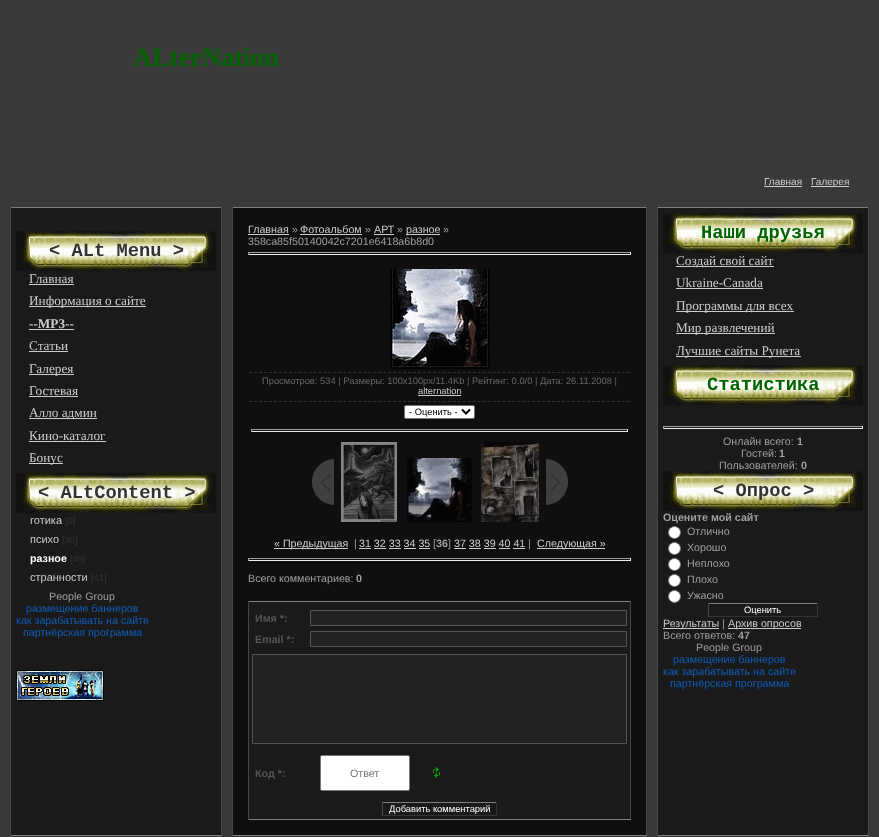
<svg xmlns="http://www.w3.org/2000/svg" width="879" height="837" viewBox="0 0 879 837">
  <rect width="100%" height="100%" fill="#393939"/>
  <path d="M764 186h38v1H764z" fill="#ccc"/>
  <path d="M811 186h38v1H811z" fill="#ccc"/>
  <path d="M11 208h210v627H11z" fill="#1a1a1a"/>
  <path d="M10 207h212v1H10z" fill="#7e7e7e"/>
  <path d="M221 207h1v629H221z" fill="#454545"/>
  <path d="M10 835h212v1H10z" fill="#7e7e7e"/>
  <path d="M10 207h1v629H10z" fill="#454545"/>
  <image x="16" y="231" width="200" height="40" href="img/1.png"/>
  <path d="M29 284h45v1H29z" fill="#ccc"/>
  <path d="M29 306h117v1H29z" fill="#ccc"/>
  <path d="M29 329h45v1H29z" fill="#ccc"/>
  <path d="M29 351h39v1H29z" fill="#ccc"/>
  <path d="M29 374h45v1H29z" fill="#ccc"/>
  <path d="M29 396h49v1H29z" fill="#ccc"/>
  <path d="M29 418h68v1H29z" fill="#ccc"/>
  <path d="M29 441h77v1H29z" fill="#ccc"/>
  <path d="M29 463h34v1H29z" fill="#ccc"/>
  <image x="16" y="473" width="200" height="40" href="img/1.png"/>
  <image x="16" y="670" width="88" height="31" href="img/2.png"/>
  <path d="M233 208h413v627H233z" fill="#0f0f0f"/>
  <path d="M232 207h415v1H232z" fill="#7e7e7e"/>
  <path d="M646 207h1v629H646z" fill="#454545"/>
  <path d="M232 835h415v1H232z" fill="#7e7e7e"/>
  <path d="M232 207h1v629H232z" fill="#454545"/>
  <path d="M248 234h41v1H248z" fill="#ccc"/>
  <path d="M300 234h62v1H300z" fill="#ccc"/>
  <path d="M374 234h20v1H374z" fill="#ccc"/>
  <path d="M406 234h34v1H406z" fill="#ccc"/>
  <path d="M248 252h383v1H248z" fill="#9f9f9f"/>
  <path d="M630 252h1v3H630z" fill="#eee"/>
  <path d="M248 254h383v1H248z" fill="#eee"/>
  <path d="M248 252h1v3H248z" fill="#9f9f9f"/>
  <image x="390" y="269" width="100" height="100" href="img/3.png"/>
  <path d="M249 372.5H630" fill="none" stroke="#333" stroke-dasharray="3 1.97"/>
  <path d="M249 401.5H630" fill="none" stroke="#333" stroke-dasharray="3 1.97"/>
  <path d="M418 395h43v1H418z" fill="#ccc"/>
  <rect x="404.5" y="405.5" width="70" height="13" rx="1.5" fill="#fff" stroke="#767676"/>
  <path d="M462 409.5L466 413.5L470 409.5" fill="none" stroke="#000" stroke-width="2"/>
  <path d="M251 429h377v1H251z" fill="#9f9f9f"/>
  <path d="M627 429h1v3H627z" fill="#eee"/>
  <path d="M251 431h377v1H251z" fill="#eee"/>
  <path d="M251 429h1v3H251z" fill="#9f9f9f"/>
  <image x="312" y="459" width="22" height="46" href="img/4.png"/>
  <image x="341" y="442" width="56" height="80" href="img/5.png"/>
  <image x="407" y="458" width="65" height="64" href="img/6.png"/>
  <image x="481" y="442" width="58" height="80" href="img/7.png"/>
  <image x="546" y="459" width="22" height="46" href="img/8.png"/>
  <path d="M274 548h74v1H274z" fill="#ccc"/>
  <path d="M359 548h12v1H359z" fill="#ccc"/>
  <path d="M454 548h12v1H454z" fill="#ccc"/>
  <path d="M537 548h68v1H537z" fill="#ccc"/>
  <path d="M374 548h12v1H374z" fill="#ccc"/>
  <path d="M389 548h12v1H389z" fill="#ccc"/>
  <path d="M404 548h12v1H404z" fill="#ccc"/>
  <path d="M419 548h11v1H419z" fill="#ccc"/>
  <path d="M469 548h12v1H469z" fill="#ccc"/>
  <path d="M484 548h12v1H484z" fill="#ccc"/>
  <path d="M499 548h11v1H499z" fill="#ccc"/>
  <path d="M513 548h12v1H513z" fill="#ccc"/>
  <path d="M248 558h383v1H248z" fill="#9f9f9f"/>
  <path d="M630 558h1v3H630z" fill="#eee"/>
  <path d="M248 560h383v1H248z" fill="#eee"/>
  <path d="M248 558h1v3H248z" fill="#9f9f9f"/>
  <path d="M249 602h381v217H249z" fill="#1a1a1a"/>
  <path d="M248 601h383v1H248z" fill="#7e7e7e"/>
  <path d="M630 601h1v219H630z" fill="#454545"/>
  <path d="M248 819h383v1H248z" fill="#7e7e7e"/>
  <path d="M248 601h1v219H248z" fill="#454545"/>
  <path d="M310.5 610.5h316v15H310.5z" fill="#222" stroke="#555"/>
  <path d="M310.5 631.5h316v15H310.5z" fill="#222" stroke="#555"/>
  <path d="M252.5 654.5h374v89H252.5z" fill="#222" stroke="#555"/>
  <rect x="320.5" y="755.5" width="89" height="35" rx="1.5" fill="#fff" stroke="#767676"/>
  <image x="433" y="767" width="7" height="11" href="img/9.png"/>
  <path d="M382 802h115v1H382z" fill="#7e7e7e"/>
  <path d="M496 802h1v14H496z" fill="#333"/>
  <path d="M382 815h115v1H382z" fill="#333"/>
  <path d="M382 802h1v14H382z" fill="#454545"/>
  <path d="M658 208h210v627H658z" fill="#1a1a1a"/>
  <path d="M657 207h212v1H657z" fill="#7e7e7e"/>
  <path d="M868 207h1v629H868z" fill="#454545"/>
  <path d="M657 835h212v1H657z" fill="#7e7e7e"/>
  <path d="M657 207h1v629H657z" fill="#454545"/>
  <image x="663" y="213" width="200" height="40" href="img/1.png"/>
  <path d="M676 266h98v1H676z" fill="#ccc"/>
  <path d="M676 288h87v1H676z" fill="#ccc"/>
  <path d="M676 311h118v1H676z" fill="#ccc"/>
  <path d="M676 333h99v1H676z" fill="#ccc"/>
  <path d="M676 356h125v1H676z" fill="#ccc"/>
  <image x="663" y="365" width="200" height="40" href="img/1.png"/>
  <path d="M663 426h200v1H663z" fill="#9f9f9f"/>
  <path d="M862 426h1v3H862z" fill="#eee"/>
  <path d="M663 428h200v1H663z" fill="#eee"/>
  <path d="M663 426h1v3H663z" fill="#9f9f9f"/>
  <image x="663" y="471" width="200" height="40" href="img/1.png"/>
  <circle cx="674.5" cy="532.5" r="6" fill="#fff" stroke="#767676"/>
  <circle cx="674.5" cy="548.5" r="6" fill="#fff" stroke="#767676"/>
  <circle cx="674.5" cy="564.5" r="6" fill="#fff" stroke="#767676"/>
  <circle cx="674.5" cy="580.5" r="6" fill="#fff" stroke="#767676"/>
  <circle cx="674.5" cy="596.5" r="6" fill="#fff" stroke="#767676"/>
  <path d="M708 603h110v1H708z" fill="#7e7e7e"/>
  <path d="M817 603h1v14H817z" fill="#333"/>
  <path d="M708 616h110v1H708z" fill="#333"/>
  <path d="M708 603h1v14H708z" fill="#454545"/>
  <path d="M663 628h56v1H663z" fill="#ccc"/>
  <path d="M728 628h73v1H728z" fill="#ccc"/>
  <text x="133" y="66" font-family="Liberation Serif" font-size="26.5" font-weight="bold" fill="#006400">ALterNation</text>
  <g font-family="Liberation Sans" font-size="10" fill="#ccc">
    <text x="764" y="185">Главная</text>
    <text x="811" y="185">Галерея</text>
  </g>
  <text x="49" y="256" font-family="Liberation Mono" font-size="18.75" font-weight="bold" fill="#333">&lt; ALt Menu &gt;</text>
  <g font-family="Liberation Serif" font-size="13.25" fill="#ccc">
    <text x="29" y="283">Главная</text>
    <text x="29" y="305">Информация о сайте</text>
  </g>
  <text x="29" y="328" font-family="Liberation Serif" font-size="13.25" font-weight="bold" fill="#ccc">--MP3--</text>
  <g font-family="Liberation Serif" font-size="13.25" fill="#ccc">
    <text x="29" y="350">Статьи</text>
    <text x="29" y="373">Галерея</text>
    <text x="29" y="395">Гостевая</text>
    <text x="29" y="417">Алло админ</text>
    <text x="29" y="440">Кино-каталог</text>
    <text x="29" y="462">Бонус</text>
  </g>
  <text x="38" y="498" font-family="Liberation Mono" font-size="18.75" font-weight="bold" fill="#333">&lt; ALtContent &gt;</text>
  <text x="30" y="524" font-family="Liberation Sans" font-size="11" fill="#ccc">готика</text>
  <text x="65" y="524" font-family="Liberation Sans" font-size="9.35" fill="#333">[0]</text>
  <text x="30" y="543" font-family="Liberation Sans" font-size="11" fill="#ccc">психо</text>
  <text x="62" y="543" font-family="Liberation Sans" font-size="9.35" fill="#333">[30]</text>
  <text x="30" y="562" font-family="Liberation Sans" font-size="10.7" font-weight="bold" fill="#fff">разное</text>
  <text x="70" y="562" font-family="Liberation Sans" font-size="9.35" fill="#333">[49]</text>
  <text x="30" y="581" font-family="Liberation Sans" font-size="11" fill="#ccc">странности</text>
  <text x="91" y="581" font-family="Liberation Sans" font-size="9.35" fill="#333">[41]</text>
  <text x="49" y="600" font-family="Liberation Sans" font-size="10.7" fill="#9f9f9f">People Group</text>
  <g font-family="Liberation Sans" font-size="10.7" fill="#105cb6">
    <text x="26" y="612">размещение баннеров</text>
    <text x="16" y="624">как зарабатывать на сайте</text>
    <text x="23" y="636">партнёрская программа</text>
  </g>
  <text x="248" y="233" font-family="Liberation Sans" font-size="10.7" fill="#ccc">Главная</text>
  <text x="292" y="233" font-family="Liberation Sans" font-size="10.7" fill="#9f9f9f">»</text>
  <text x="300" y="233" font-family="Liberation Sans" font-size="10.7" fill="#ccc">Фотоальбом</text>
  <text x="365" y="233" font-family="Liberation Sans" font-size="10.7" fill="#9f9f9f">»</text>
  <text x="374" y="233" font-family="Liberation Sans" font-size="10.7" fill="#ccc">АРТ</text>
  <text x="397" y="233" font-family="Liberation Sans" font-size="10.7" fill="#9f9f9f">»</text>
  <text x="406" y="233" font-family="Liberation Sans" font-size="10.7" fill="#ccc">разное</text>
  <g font-family="Liberation Sans" font-size="10.7" fill="#9f9f9f">
    <text x="443" y="233">»</text>
    <text x="248" y="245">358ca85f50140042c7201e6418a6b8d0</text>
  </g>
  <text x="262" y="384" font-family="Liberation Sans" font-size="9.35" fill="#666">Просмотров: 534 | Размеры: 100x100px/11.4Kb | Рейтинг: 0.0/0 | Дата: 26.11.2008 |</text>
  <text x="418" y="394" font-family="Liberation Sans" font-size="9.35" fill="#ccc">alternation</text>
  <text x="409" y="415" font-family="Liberation Sans" font-size="9.35" fill="#000">- Оценить -</text>
  <text x="274" y="547" font-family="Liberation Sans" font-size="10.7" fill="#ccc">« Предыдущая</text>
  <text x="354" y="547" font-family="Liberation Sans" font-size="10.7" fill="#9f9f9f">|</text>
  <text x="359" y="547" font-family="Liberation Sans" font-size="10.7" fill="#ccc">31 32 33 34 35</text>
  <text x="433" y="547" font-family="Liberation Sans" font-size="10.7" fill="#9f9f9f">[</text>
  <text x="436" y="547" font-family="Liberation Sans" font-size="10.7" font-weight="bold" fill="#9f9f9f">36</text>
  <text x="448" y="547" font-family="Liberation Sans" font-size="10.7" fill="#9f9f9f">]</text>
  <text x="454" y="547" font-family="Liberation Sans" font-size="10.7" fill="#ccc">37 38 39 40 41</text>
  <text x="528" y="547" font-family="Liberation Sans" font-size="10.7" fill="#9f9f9f">|</text>
  <text x="537" y="547" font-family="Liberation Sans" font-size="10.7" fill="#ccc">Следующая »</text>
  <text x="248" y="582" font-family="Liberation Sans" font-size="10.7" fill="#9f9f9f">Всего комментариев:</text>
  <text x="356" y="582" font-family="Liberation Sans" font-size="10.7" font-weight="bold" fill="#9f9f9f">0</text>
  <g font-family="Liberation Sans" font-size="10.7" font-weight="bold" fill="#555">
    <text x="255" y="622">Имя *:</text>
    <text x="255" y="643">Email *:</text>
    <text x="255" y="777">Код *:</text>
  </g>
  <text x="350" y="777" font-family="Liberation Sans" font-size="10.7" fill="#757575">Ответ</text>
  <text x="389" y="812" font-family="Liberation Sans" font-size="9.35" fill="#fff">Добавить комментарий</text>
  <text x="701" y="238" font-family="Liberation Mono" font-size="18.75" font-weight="bold" fill="#006400">Наши друзья</text>
  <g font-family="Liberation Serif" font-size="13.25" fill="#ccc">
    <text x="676" y="265">Создай свой сайт</text>
    <text x="676" y="287">Ukraine-Canada</text>
    <text x="676" y="310">Программы для всех</text>
    <text x="676" y="332">Мир развлечений</text>
    <text x="676" y="355">Лучшие сайты Рунета</text>
  </g>
  <text x="707" y="390" font-family="Liberation Mono" font-size="18.75" font-weight="bold" fill="#006400">Статистика</text>
  <text x="723" y="445" font-family="Liberation Sans" font-size="10.7" fill="#9f9f9f">Онлайн всего:</text>
  <text x="797" y="445" font-family="Liberation Sans" font-size="10.7" font-weight="bold" fill="#9f9f9f">1</text>
  <text x="741" y="457" font-family="Liberation Sans" font-size="10.7" fill="#9f9f9f">Гостей:</text>
  <text x="779" y="457" font-family="Liberation Sans" font-size="10.7" font-weight="bold" fill="#9f9f9f">1</text>
  <text x="719" y="469" font-family="Liberation Sans" font-size="10.7" fill="#9f9f9f">Пользователей:</text>
  <text x="801" y="469" font-family="Liberation Sans" font-size="10.7" font-weight="bold" fill="#9f9f9f">0</text>
  <text x="713" y="496" font-family="Liberation Mono" font-size="18.75" font-weight="bold" fill="#333">&lt; Опрос &gt;</text>
  <text x="663" y="521" font-family="Liberation Sans" font-size="10.7" font-weight="bold" fill="#9f9f9f">Оцените мой сайт</text>
  <g font-family="Liberation Sans" font-size="10.7" fill="#9f9f9f">
    <text x="687" y="535">Отлично</text>
    <text x="687" y="551">Хорошо</text>
    <text x="687" y="567">Неплохо</text>
    <text x="687" y="583">Плохо</text>
    <text x="687" y="599">Ужасно</text>
  </g>
  <text x="744" y="613" font-family="Liberation Sans" font-size="9.35" fill="#fff">Оценить</text>
  <text x="663" y="627" font-family="Liberation Sans" font-size="10.7" fill="#ccc">Результаты</text>
  <text x="722" y="627" font-family="Liberation Sans" font-size="10.7" fill="#9f9f9f">|</text>
  <text x="728" y="627" font-family="Liberation Sans" font-size="10.7" fill="#ccc">Архив опросов</text>
  <text x="663" y="639" font-family="Liberation Sans" font-size="10.7" fill="#9f9f9f">Всего ответов:</text>
  <text x="738" y="639" font-family="Liberation Sans" font-size="10.7" font-weight="bold" fill="#9f9f9f">47</text>
  <text x="696" y="651" font-family="Liberation Sans" font-size="10.7" fill="#9f9f9f">People Group</text>
  <g font-family="Liberation Sans" font-size="10.7" fill="#105cb6">
    <text x="673" y="663">размещение баннеров</text>
    <text x="663" y="675">как зарабатывать на сайте</text>
    <text x="670" y="687">партнёрская программа</text>
  </g>
</svg>
